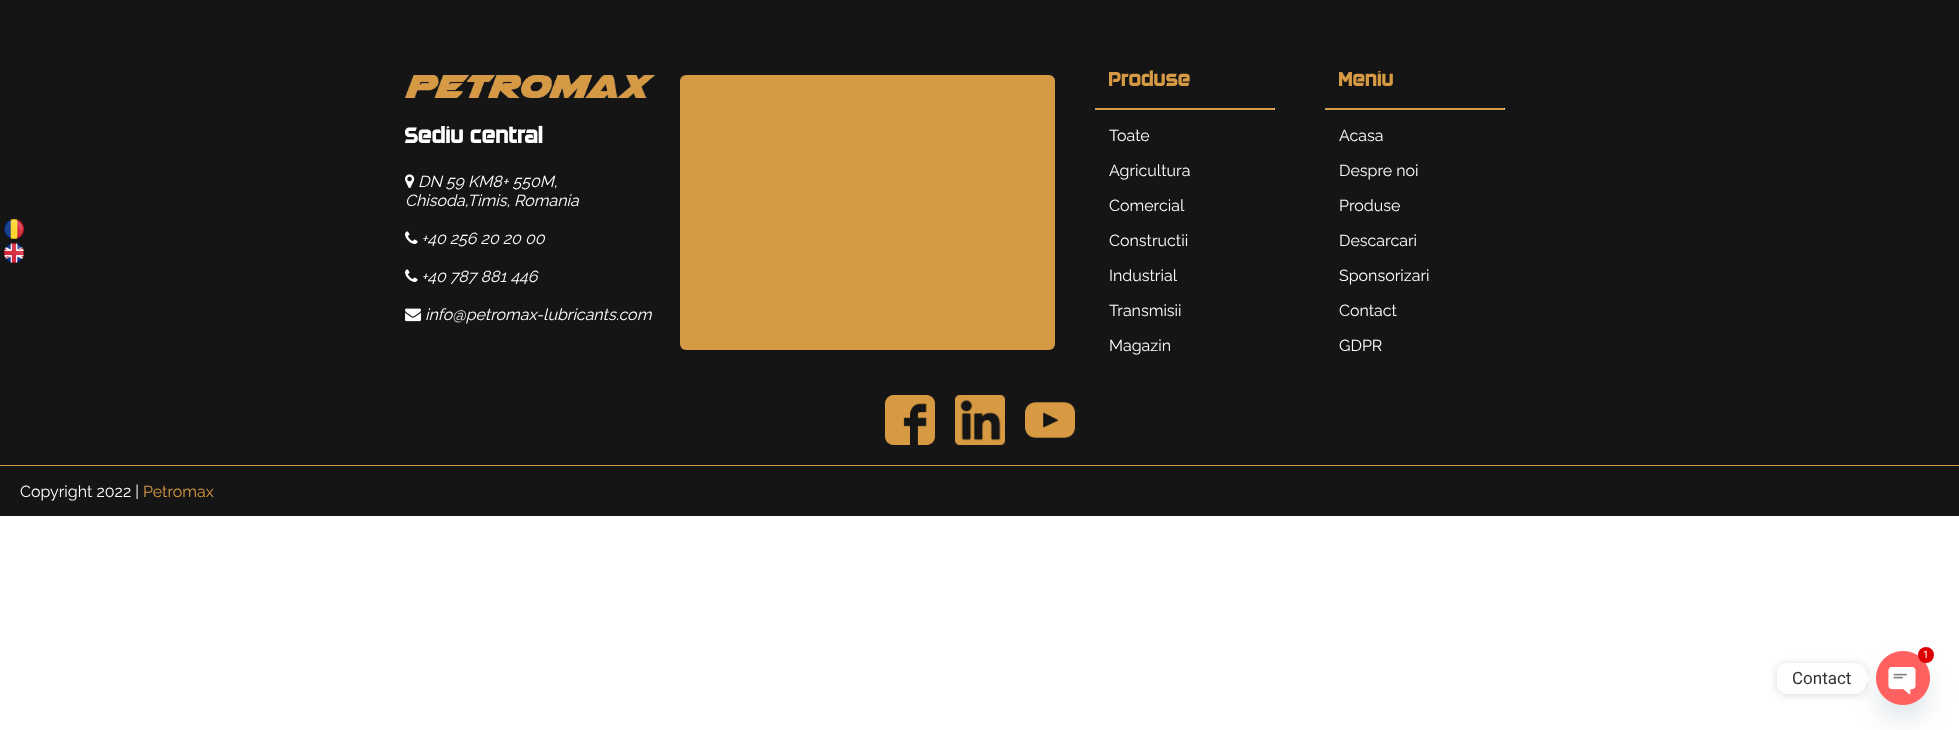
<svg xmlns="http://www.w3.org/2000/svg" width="1959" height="730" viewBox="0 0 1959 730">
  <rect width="100%" height="100%" fill="#fff"/>
  <path d="M0 0h1959v516H0z" fill="#151515"/>
  <image x="4" y="219" width="20" height="20" href="img/1.png"/>
  <image x="4" y="243" width="20" height="20" href="img/2.png"/>
  <image x="405" y="75" width="250" height="23" href="img/3.png"/>
  <image x="405" y="174" width="10" height="15" href="img/4.png"/>
  <image x="405" y="231" width="13" height="13" href="img/5.png"/>
  <image x="405" y="269" width="13" height="13" href="img/5.png"/>
  <image x="405" y="308" width="16" height="14" href="img/6.png"/>
  <rect x="680" y="75" width="375" height="275" rx="6" fill="#d69944"/>
  <path d="M1095 108h180v1H1095z" fill="#d69944"/>
  <path d="M1274 108h1v2H1274z" fill="#eee"/>
  <path d="M1095 109h180v1H1095z" fill="#d69944"/>
  <path d="M1095 108h1v2H1095z" fill="#9f9f9f"/>
  <path d="M1325 108h180v1H1325z" fill="#d69944"/>
  <path d="M1504 108h1v2H1504z" fill="#eee"/>
  <path d="M1325 109h180v1H1325z" fill="#d69944"/>
  <path d="M1325 108h1v2H1325z" fill="#9f9f9f"/>
  <image x="885" y="395" width="50" height="50" href="img/7.png"/>
  <image x="955" y="395" width="50" height="50" href="img/8.png"/>
  <image x="1025" y="402" width="50" height="36" href="img/9.png"/>
  <path d="M0 465h1959v1H0z" fill="#d69944"/>
  <rect x="1777" y="664" width="89" height="31" rx="10" fill="#00000026" filter="blur(4px)"/>
  <rect x="1777" y="663" width="89" height="31" rx="10" fill="#fff"/>
  <path d="M1866 683.5V673.5L1871 678.5Z" fill="#fff"/>
  <rect x="1876" y="667" width="54" height="54" rx="27" fill="#49687e29" filter="blur(12px)"/>
  <image x="1876" y="651" width="54" height="54" href="img/10.png"/>
  <circle cx="1926" cy="655" r="8" fill="#d00"/>
  <text x="405" y="143" font-family="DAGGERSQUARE" font-size="22" font-weight="bold" fill="#fff">Sediu central</text>
  <g font-family="Raleway" font-size="16" font-weight="100" font-style="italic" fill="#fff">
    <text x="418" y="187">DN 59 KM8+ 550M,</text>
    <text x="405" y="206">Chisoda,Timis, Romania</text>
    <text x="421" y="244">+40 256 20 20 00</text>
    <text x="421" y="282">+40 787 881 446</text>
    <text x="425" y="320">info@petromax-lubricants.com</text>
  </g>
  <text x="1109" y="86" font-family="DAGGERSQUARE" font-size="20" font-weight="bold" fill="#d69944">Produse</text>
  <g font-family="Raleway" font-size="16" font-weight="100" fill="#fff">
    <text x="1109" y="141">Toate</text>
    <text x="1109" y="176">Agricultura</text>
    <text x="1109" y="211">Comercial</text>
    <text x="1109" y="246">Constructii</text>
    <text x="1109" y="281">Industrial</text>
    <text x="1109" y="316">Transmisii</text>
    <text x="1109" y="351">Magazin</text>
  </g>
  <text x="1339" y="86" font-family="DAGGERSQUARE" font-size="20" font-weight="bold" fill="#d69944">Meniu</text>
  <g font-family="Raleway" font-size="16" font-weight="100" fill="#fff">
    <text x="1339" y="141">Acasa</text>
    <text x="1339" y="176">Despre noi</text>
    <text x="1339" y="211">Produse</text>
    <text x="1339" y="246">Descarcari</text>
    <text x="1339" y="281">Sponsorizari</text>
    <text x="1339" y="316">Contact</text>
    <text x="1339" y="351">GDPR</text>
    <text x="20" y="497">Copyright 2022 |</text>
  </g>
  <text x="143" y="497" font-family="Raleway" font-size="16" font-weight="100" fill="#d69944">Petromax</text>
  <text x="1923" y="658" font-family="Roboto" font-size="10" fill="#fff">1</text>
  <text x="1792" y="684" font-family="Roboto" font-size="17" fill="#333">Contact</text>
</svg>
